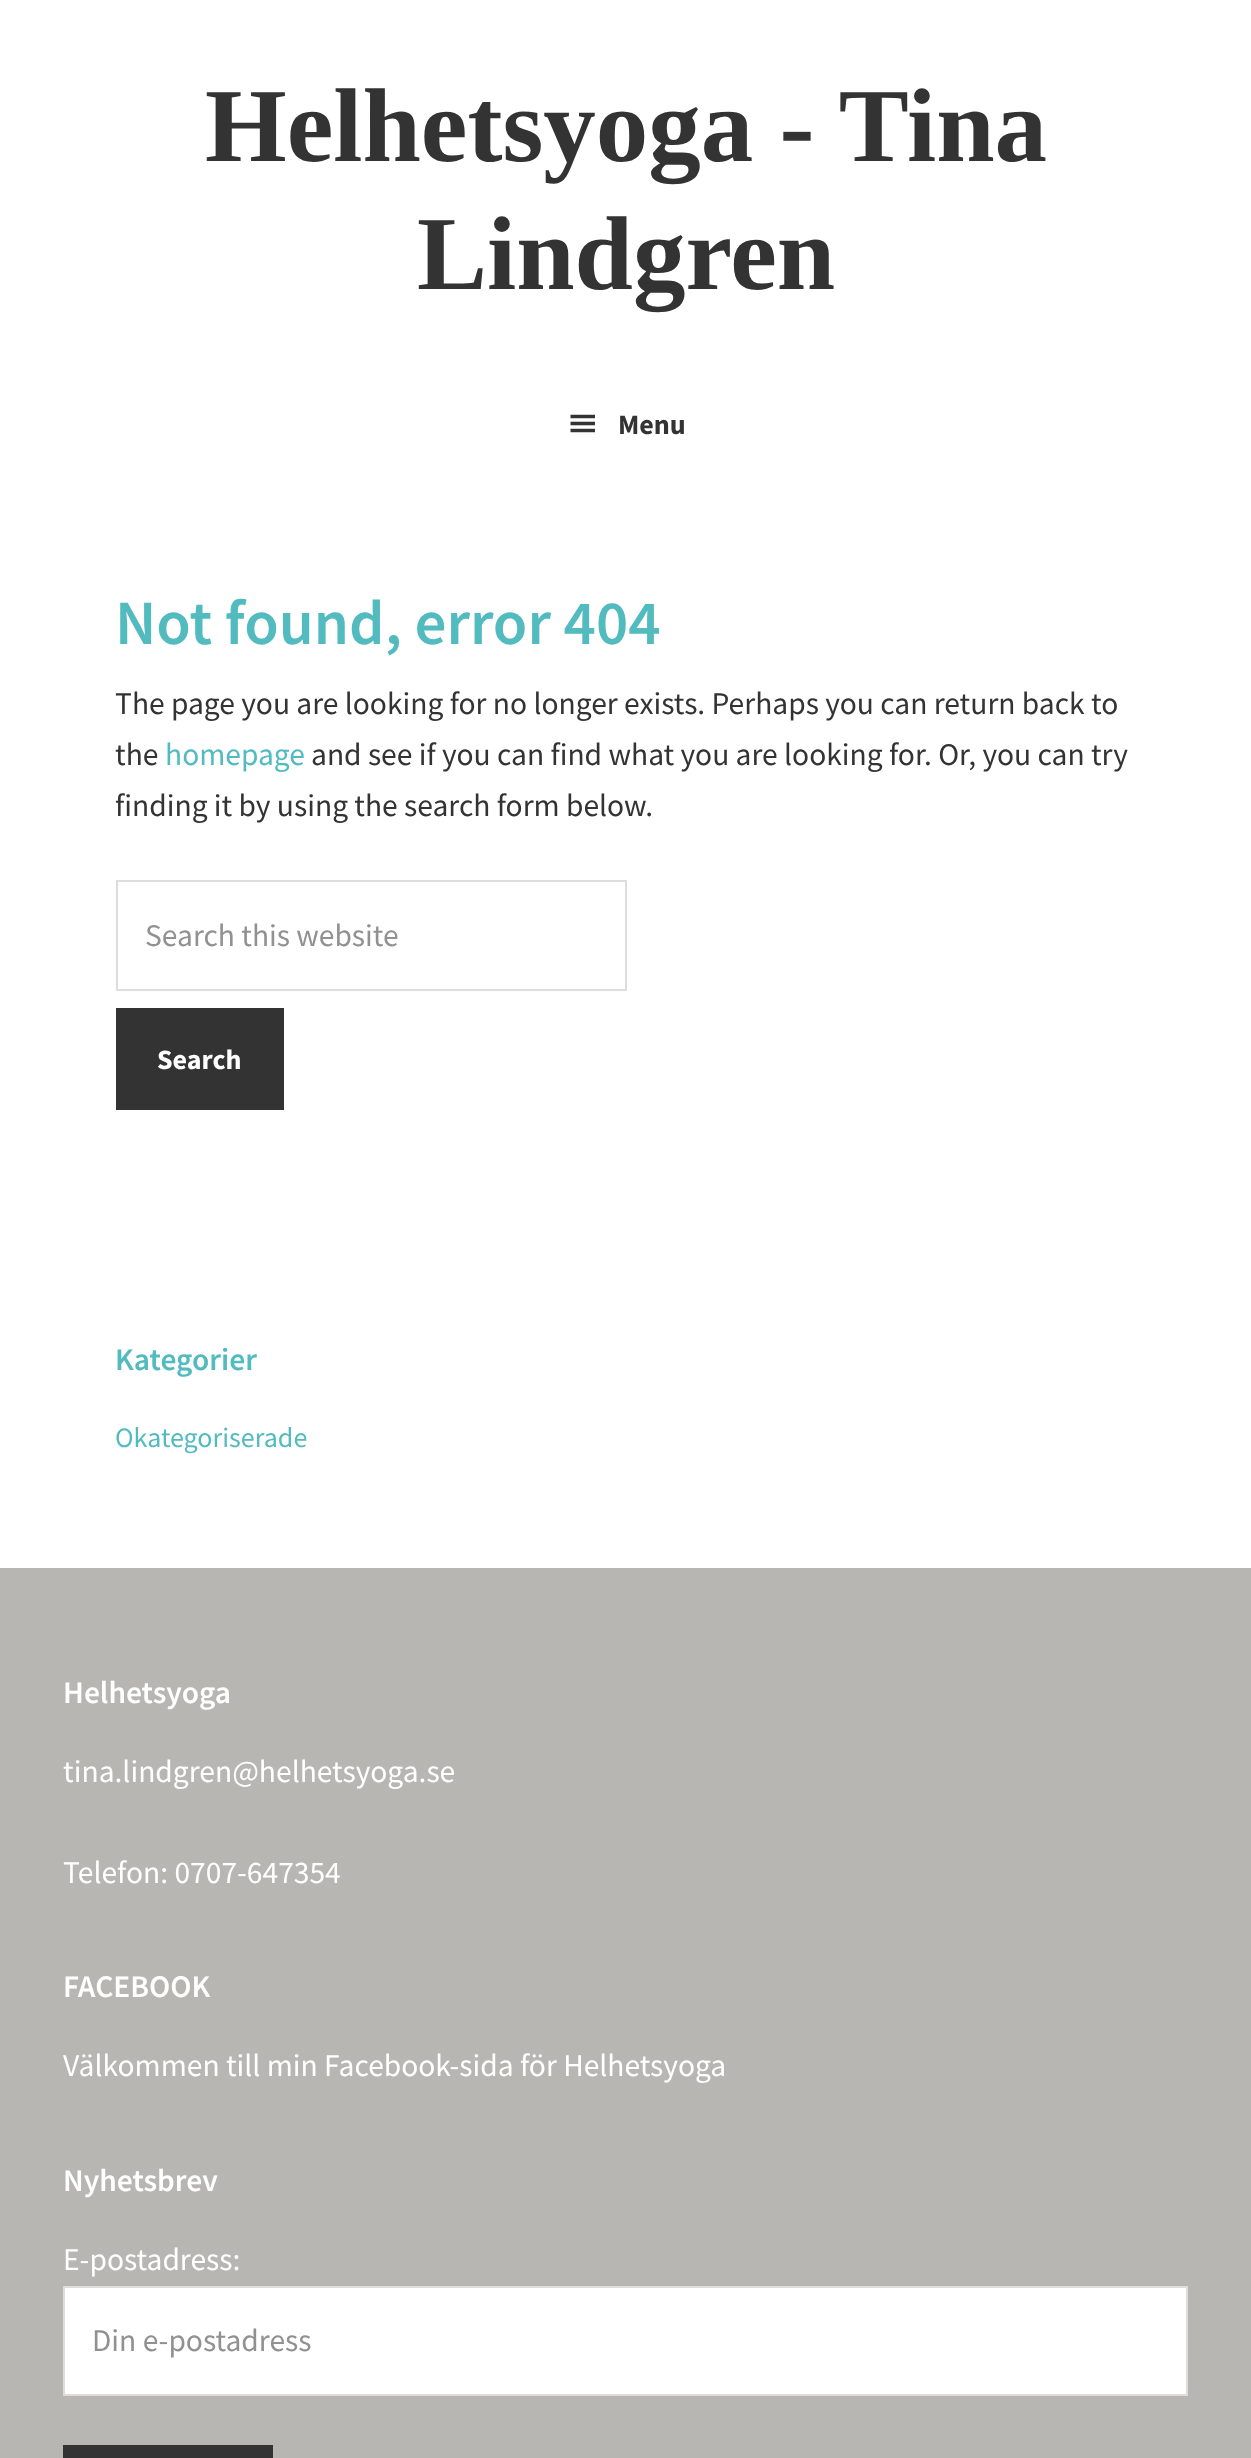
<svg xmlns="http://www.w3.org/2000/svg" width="1251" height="2458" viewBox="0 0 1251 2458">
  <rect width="100%" height="100%" fill="#fff"/>
  <image x="570" y="414" width="25" height="19" href="img/1.png"/>
  <path d="M117 881h509v109H117z" fill="none" stroke="#ddd" stroke-width="2"/>
  <path d="M116 1008h168v102H116z" fill="#333"/>
  <path d="M0 1568h1251v890H0z" fill="#b7b6b2"/>
  <path d="M64 2287h1123v108H64z" fill="#fff" stroke="#ddd" stroke-width="2"/>
  <path d="M63 2445h210v13H63z" fill="#333"/>
  <g font-family="Liberation Serif" font-size="105" font-weight="bold" fill="#333">
    <text x="205" y="161">Helhetsyoga - Tina</text>
    <text x="417" y="289">Lindgren</text>
  </g>
  <text x="618" y="434" font-family="Source Sans Pro" font-size="28" font-weight="bold" fill="#333">Menu</text>
  <text x="115" y="644" font-family="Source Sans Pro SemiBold" font-size="63" font-weight="600" fill="#52bbbf">Not found, error 404</text>
  <g font-family="Source Sans Pro" font-size="31.5" fill="#333">
    <text x="115" y="714">The page you are looking for no longer exists. Perhaps you can return back to</text>
    <text x="115" y="765">the</text>
  </g>
  <text x="165" y="765" font-family="Source Sans Pro" font-size="31.5" fill="#52bbbf">homepage</text>
  <g font-family="Source Sans Pro" font-size="31.5" fill="#333">
    <text x="311" y="765">and see if you can find what you are looking for. Or, you can try</text>
    <text x="115" y="816">finding it by using the search form below.</text>
  </g>
  <text x="145" y="946" font-family="Source Sans Pro" font-size="31.5" fill="#919191">Search this website</text>
  <text x="157" y="1069" font-family="Source Sans Pro" font-size="28" font-weight="bold" fill="#fff">Search</text>
  <text x="115" y="1370" font-family="Source Sans Pro SemiBold" font-size="31.5" font-weight="600" fill="#52bbbf">Kategorier</text>
  <text x="115" y="1447" font-family="Source Sans Pro" font-size="28" fill="#52bbbf">Okategoriserade</text>
  <text x="63" y="1703" font-family="Source Sans Pro SemiBold" font-size="31.5" font-weight="600" fill="#fff">Helhetsyoga</text>
  <g font-family="Source Sans Pro" font-size="31.5" fill="#fff">
    <text x="63" y="1782">tina.lindgren@helhetsyoga.se</text>
    <text x="63" y="1883">Telefon: 0707-647354</text>
  </g>
  <text x="63" y="1997" font-family="Source Sans Pro SemiBold" font-size="31.5" font-weight="600" fill="#fff">FACEBOOK</text>
  <text x="63" y="2076" font-family="Source Sans Pro" font-size="31.5" fill="#fff">Välkommen till min Facebook-sida för Helhetsyoga</text>
  <text x="63" y="2191" font-family="Source Sans Pro SemiBold" font-size="31.5" font-weight="600" fill="#fff">Nyhetsbrev</text>
  <text x="63" y="2270" font-family="Source Sans Pro" font-size="31.5" fill="#fff">E-postadress:</text>
  <text x="92" y="2351" font-family="Source Sans Pro" font-size="31.5" fill="#919191">Din e-postadress</text>
</svg>
